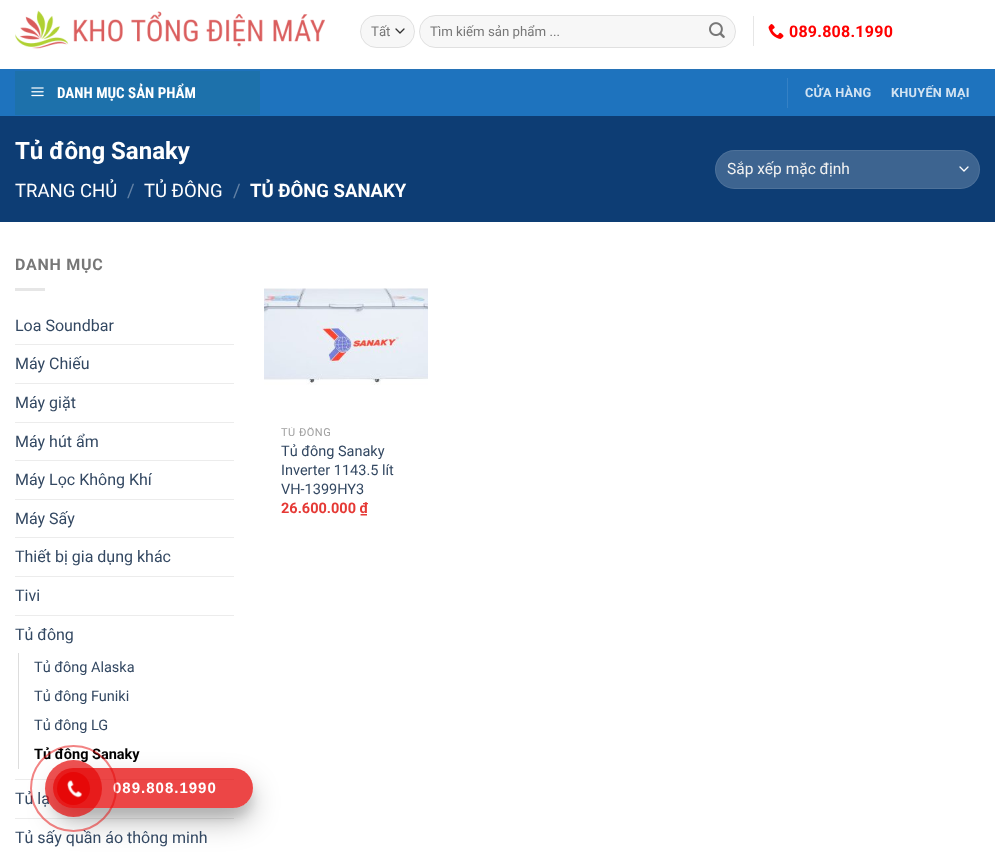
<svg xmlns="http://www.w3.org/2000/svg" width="995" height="865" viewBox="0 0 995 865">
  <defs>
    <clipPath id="clip1"><path d="M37 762H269V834H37ZM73 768H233C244 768 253 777 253 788C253 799 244 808 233 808H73C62 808 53 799 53 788C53 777 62 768 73 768Z" clip-rule="evenodd"/></clipPath>
    <clipPath id="clip2"><path d="M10 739H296V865H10ZM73 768H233C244 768 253 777 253 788C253 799 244 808 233 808H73C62 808 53 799 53 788C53 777 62 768 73 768Z" clip-rule="evenodd"/></clipPath>
    <clipPath id="clip3"><path d="M281 427h130v13H281z"/></clipPath>
  </defs>
  <rect width="100%" height="100%" fill="#fff"/>
  <image x="15" y="10" width="310" height="39" href="img/1.png"/>
  <rect x="360" y="15" width="55" height="33" rx="16.5" fill="#f7f7f7"/>
  <path d="M396 29L400 33L404 29" fill="none" stroke="#333" stroke-width="1.3" stroke-linecap="round" stroke-linejoin="round"/>
  <rect x="360.5" y="15.5" width="54" height="32" rx="16" fill="none" stroke="#00000017"/>
  <rect x="419" y="15" width="317" height="33" rx="16.5" fill="#f7f7f7"/>
  <rect x="419.5" y="15.5" width="316" height="32" rx="16" fill="none" stroke="#00000017"/>
  <image x="709" y="22" width="16" height="16" href="img/2.png"/>
  <path d="M753 16h1v30H753z" fill="#e6e6e6"/>
  <image x="768" y="24" width="16" height="15" href="img/3.png"/>
  <path d="M0 69h995v47H0z" fill="#1e73be"/>
  <path d="M15 69h965v1H15z" fill="#2773b7"/>
  <path d="M15 71h245v44H15z" fill="#1d71ab"/>
  <image x="31" y="87" width="13" height="10" href="img/4.png"/>
  <path d="M787 78h1v30H787z" fill="#3581c5"/>
  <path d="M0 116h995v106H0z" fill="#0d3d74"/>
  <rect x="715" y="150" width="265" height="39" rx="19.5" fill="#3d6490"/>
  <path d="M960 167L964 171L968 167" fill="none" stroke="#fff" stroke-width="1.3" stroke-linecap="round" stroke-linejoin="round"/>
  <rect x="715.5" y="150.5" width="264" height="38" rx="19" fill="none" stroke="#ffffff17"/>
  <path d="M15 288h30v3H15z" fill="#e6e6e6"/>
  <path d="M15 344h219v1H15z" fill="#ececec"/>
  <path d="M15 383h219v1H15z" fill="#ececec"/>
  <path d="M15 422h219v1H15z" fill="#ececec"/>
  <path d="M15 460h219v1H15z" fill="#ececec"/>
  <path d="M15 499h219v1H15z" fill="#ececec"/>
  <path d="M15 537h219v1H15z" fill="#ececec"/>
  <path d="M15 576h219v1H15z" fill="#ececec"/>
  <path d="M15 615h219v1H15z" fill="#ececec"/>
  <path d="M18 653h1v116H18z" fill="#ddd"/>
  <path d="M15 779h219v1H15z" fill="#ececec"/>
  <path d="M15 818h219v1H15z" fill="#ececec"/>
  <image x="264" y="288" width="164" height="97" href="img/5.png"/>
  <g clip-path="url(#clip1)">
    <rect x="53" y="778" width="200" height="40" rx="20" fill="#0000001a" filter="blur(5px)"/>
  </g>
  <g clip-path="url(#clip2)">
    <rect x="53" y="782" width="200" height="40" rx="20" fill="#00000040" filter="blur(14px)"/>
  </g>
  <rect x="53" y="768" width="200" height="40" rx="20" fill="#e60808bf"/>
  <g font-family="Roboto" font-size="13.25" fill="#777">
    <text x="371" y="36">Tất</text>
    <text x="430" y="36">Tìm kiếm sản phẩm ...</text>
  </g>
  <text x="789" y="37" font-family="Roboto" font-size="16" font-weight="bold" letter-spacing="0.25" fill="#f00">089.808.1990</text>
  <text x="57" y="98" font-family="Roboto Condensed" font-size="15" font-weight="bold" fill="#fff">DANH MỤC SẢN PHẨM</text>
  <g font-family="Roboto" font-size="12.75" font-weight="bold" letter-spacing="0.25" fill="#d2e3f2">
    <text x="805" y="97">CỬA HÀNG</text>
    <text x="891" y="97">KHUYẾN MẠI</text>
  </g>
  <text x="15" y="159" font-family="Roboto" font-size="24" font-weight="bold" fill="#fff">Tủ đông Sanaky</text>
  <text x="15" y="197" font-family="Roboto" font-size="18.5" fill="#fff">TRANG CHỦ</text>
  <text x="127" y="197" font-family="Roboto" font-size="18.5" fill="#6281a5">/</text>
  <text x="144" y="197" font-family="Roboto" font-size="18.5" fill="#fff">TỦ ĐÔNG</text>
  <text x="233" y="197" font-family="Roboto" font-size="18.5" fill="#6281a5">/</text>
  <text x="250" y="197" font-family="Roboto" font-size="18.5" font-weight="bold" fill="#fff">TỦ ĐÔNG SANAKY</text>
  <text x="727" y="174" font-family="Roboto" font-size="15.5" fill="#f1f1f1">Sắp xếp mặc định</text>
  <text x="15" y="270" font-family="Roboto" font-size="16" font-weight="bold" letter-spacing="0.75" fill="#777">DANH MỤC</text>
  <g font-family="Roboto" font-size="16" fill="#334862">
    <text x="15" y="331">Loa Soundbar</text>
    <text x="15" y="369">Máy Chiếu</text>
    <text x="15" y="408">Máy giặt</text>
    <text x="15" y="447">Máy hút ẩm</text>
    <text x="15" y="485">Máy Lọc Không Khí</text>
    <text x="15" y="524">Máy Sấy</text>
    <text x="15" y="562">Thiết bị gia dụng khác</text>
    <text x="15" y="601">Tivi</text>
    <text x="15" y="640">Tủ đông</text>
  </g>
  <g font-family="Roboto" font-size="14.5" fill="#334862">
    <text x="34" y="672">Tủ đông Alaska</text>
    <text x="34" y="701">Tủ đông Funiki</text>
    <text x="34" y="730">Tủ đông LG</text>
  </g>
  <text x="34" y="759" font-family="Roboto" font-size="14.5" font-weight="bold" fill="#000">Tủ đông Sanaky</text>
  <g font-family="Roboto" font-size="16" fill="#334862">
    <text x="15" y="804">Tủ lạ</text>
    <text x="15" y="843">Tủ sấy quần áo thông minh</text>
  </g>
  <g clip-path="url(#clip3)">
    <text x="281" y="436" font-family="Roboto" font-size="11" letter-spacing="0.5" fill="#a0a0a0">TỦ ĐÔNG</text>
  </g>
  <g font-family="Roboto" font-size="14.5" fill="#334862">
    <text x="281" y="456">Tủ đông Sanaky</text>
    <text x="281" y="475">Inverter 1143.5 lít</text>
    <text x="281" y="494">VH-1399HY3</text>
  </g>
  <text x="281" y="513" font-family="Roboto" font-size="14.5" font-weight="bold" fill="#e53935">26.600.000 ₫</text>
  <text x="113" y="793" font-family="Liberation Sans" font-size="15" font-weight="bold" letter-spacing="1" fill="#fff">089.808.1990</text>
  <circle cx="73.5" cy="788.5" r="42.5" fill="none" stroke="#e6080880" stroke-width="2"/>
  <circle cx="73.5" cy="788.5" r="28.5" fill="#e60808b3"/>
  <circle cx="73.5" cy="788.5" r="16.5" fill="#e60808"/>
  <image x="67" y="780" width="16" height="18" href="img/6.png"/>
</svg>
